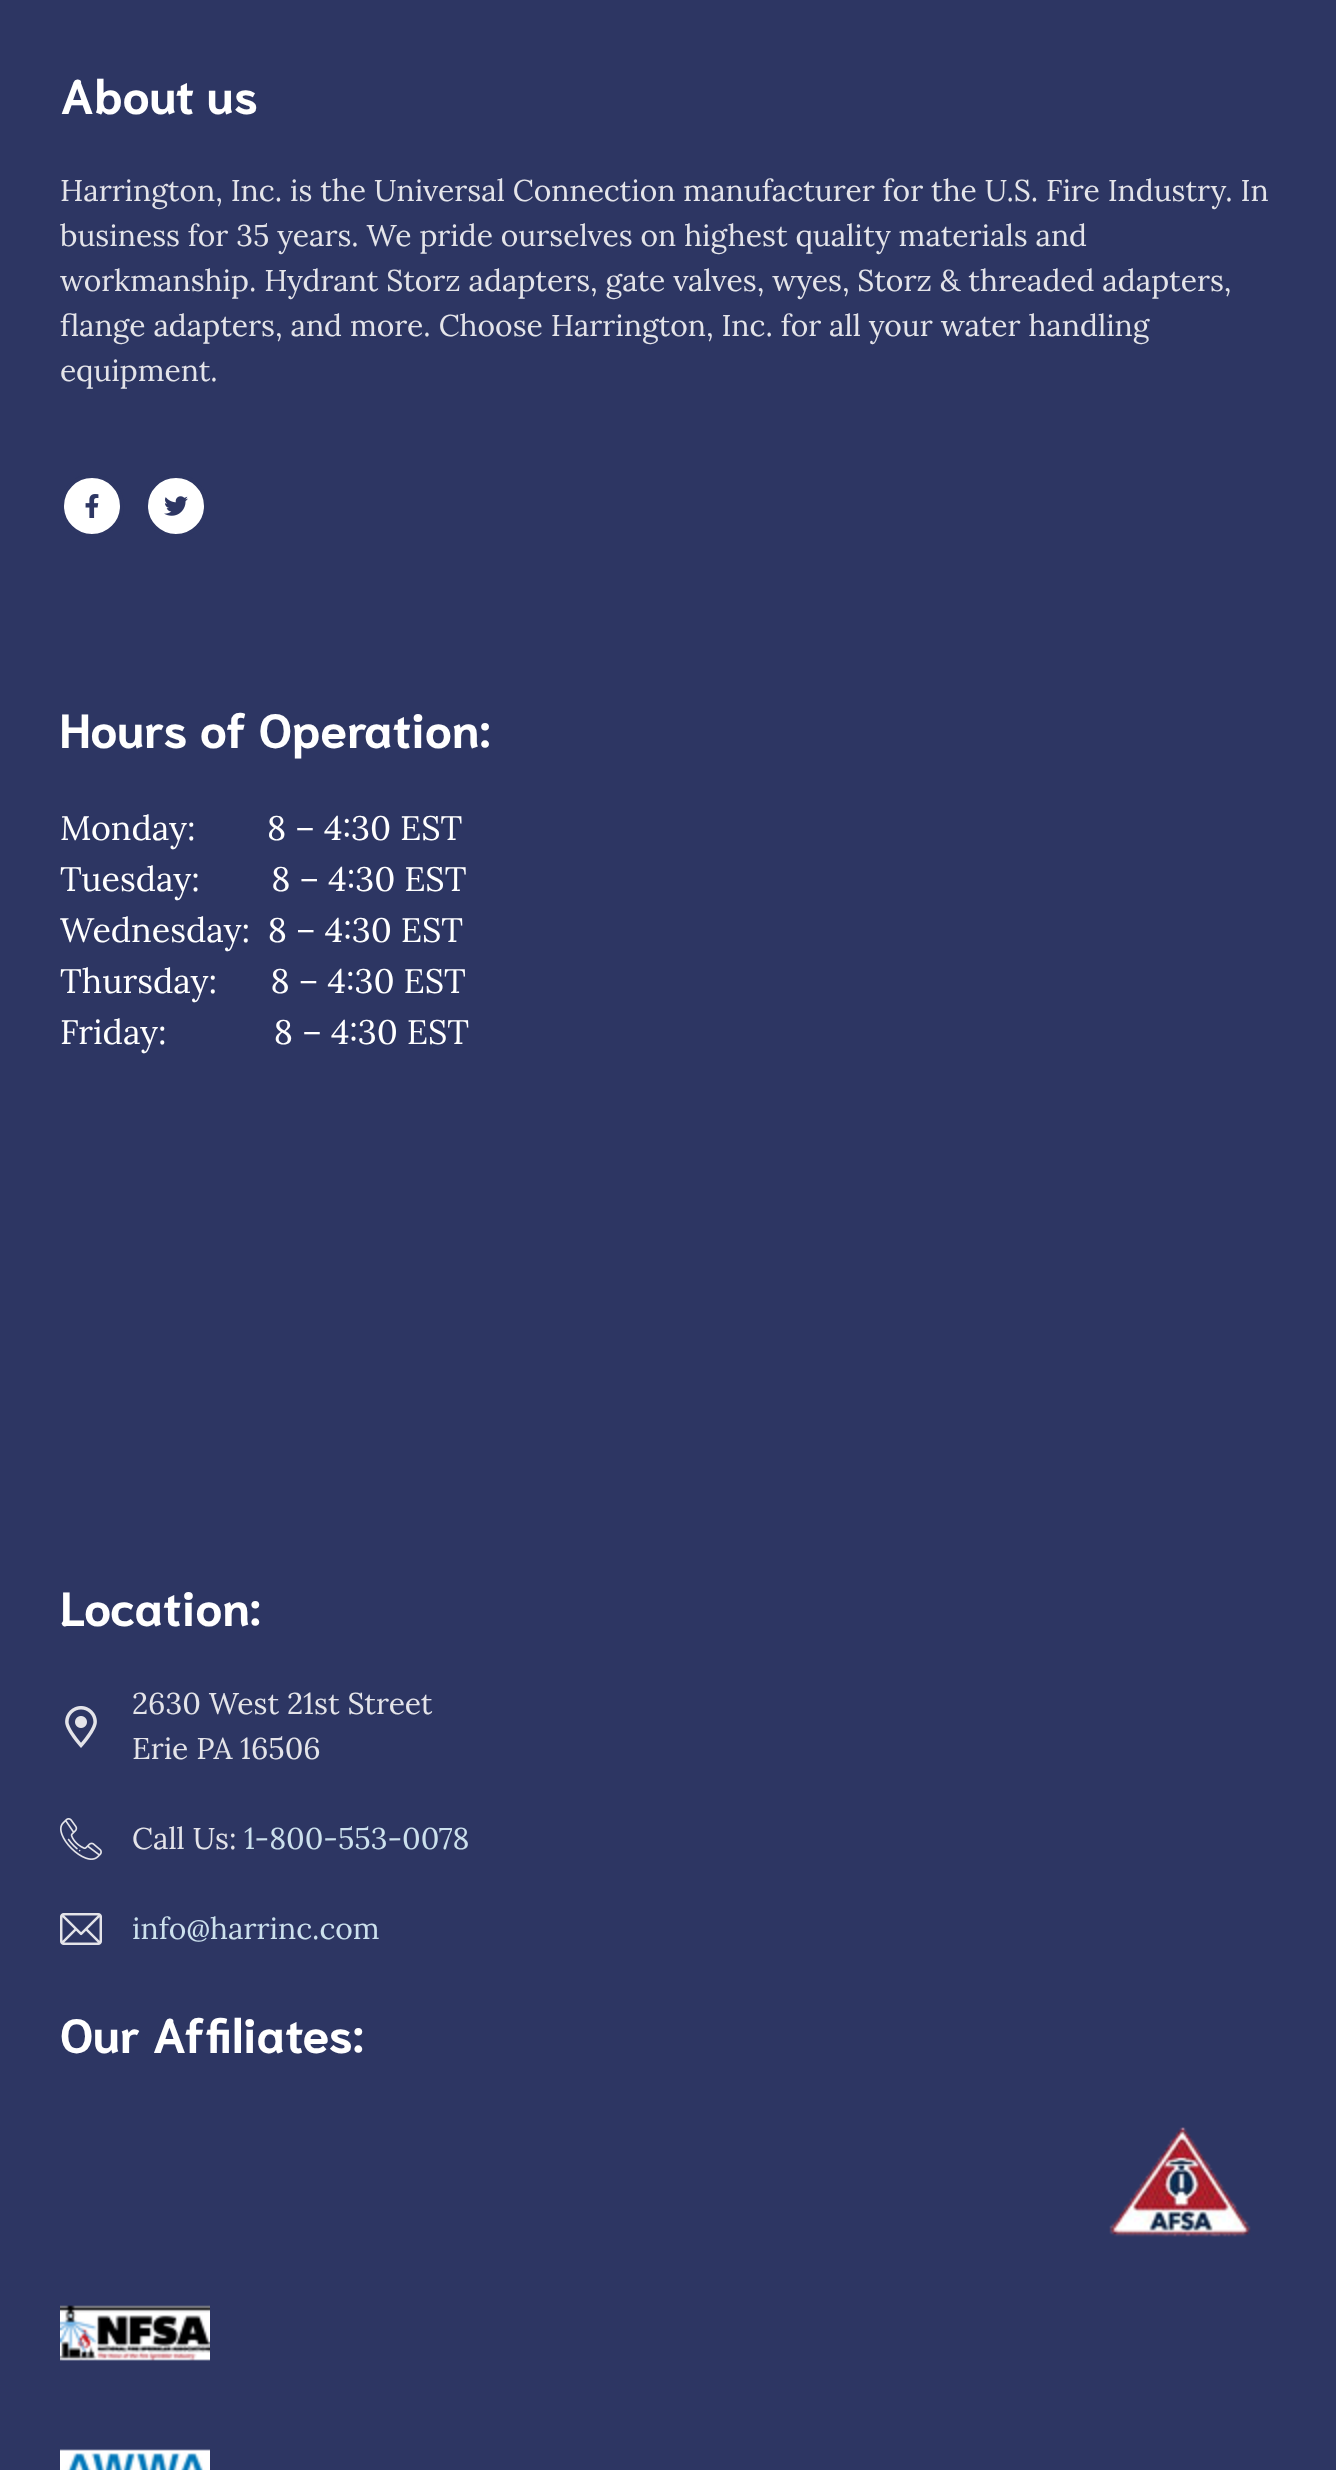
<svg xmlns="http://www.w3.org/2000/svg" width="1336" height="2470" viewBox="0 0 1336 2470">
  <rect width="100%" height="100%" fill="#2d3663"/>
  <circle cx="92" cy="506" r="30" fill="#fff" stroke="#2d3663" stroke-width="4"/>
  <image x="85" y="494" width="14" height="24" href="img/1.png"/>
  <circle cx="176" cy="506" r="30" fill="#fff" stroke="#2d3663" stroke-width="4"/>
  <image x="164" y="496" width="24" height="20" href="img/2.png"/>
  <image x="65" y="1706" width="32" height="42" href="img/3.png"/>
  <image x="60" y="1818" width="42" height="42" href="img/4.png"/>
  <image x="60" y="1913" width="42" height="32" href="img/5.png"/>
  <image x="1109" y="2127" width="142" height="110" href="img/6.png"/>
  <image x="60" y="2305" width="150" height="56" href="img/7.png"/>
  <image x="60" y="2449" width="150" height="21" href="img/8.png"/>
  <text x="60" y="114" font-family="Niramit" font-size="48" font-weight="bold" fill="#fff">About us</text>
  <g font-family="Lora" font-size="30" fill="#e4e4e9">
    <text x="60" y="201">Harrington, Inc. is the Universal Connection manufacturer for the U.S. Fire Industry. In</text>
    <text x="60" y="246">business for 35 years. We pride ourselves on highest quality materials and</text>
    <text x="60" y="291">workmanship. Hydrant Storz adapters, gate valves, wyes, Storz &amp; threaded adapters,</text>
    <text x="60" y="336">flange adapters, and more. Choose Harrington, Inc. for all your water handling</text>
    <text x="60" y="381">equipment.</text>
  </g>
  <text x="60" y="748" font-family="Niramit" font-size="48" font-weight="bold" fill="#fff">Hours of Operation:</text>
  <g font-family="Lora" font-size="34" fill="#fff">
    <text x="60" y="840" xml:space="preserve">Monday:        8 – 4:30 EST</text>
    <text x="60" y="891" xml:space="preserve">Tuesday:        8 – 4:30 EST</text>
    <text x="60" y="942" xml:space="preserve">Wednesday:  8 – 4:30 EST</text>
    <text x="60" y="993" xml:space="preserve">Thursday:      8 – 4:30 EST</text>
    <text x="60" y="1044" xml:space="preserve">Friday:            8 – 4:30 EST</text>
  </g>
  <text x="60" y="1626" font-family="Niramit" font-size="48" font-weight="bold" fill="#fff">Location:</text>
  <g font-family="Lora" font-size="30" fill="#e4e4e9">
    <text x="132" y="1714">2630 West 21st Street</text>
    <text x="132" y="1759">Erie PA 16506</text>
    <text x="132" y="1849">Call Us:</text>
  </g>
  <g font-family="Lora" font-size="30" fill="#cce1ed">
    <text x="244" y="1849">1-800-553-0078</text>
    <text x="132" y="1939">info@harrinc.com</text>
  </g>
  <text x="60" y="2053" font-family="Niramit" font-size="48" font-weight="bold" fill="#fff">Our Affiliates:</text>
</svg>
